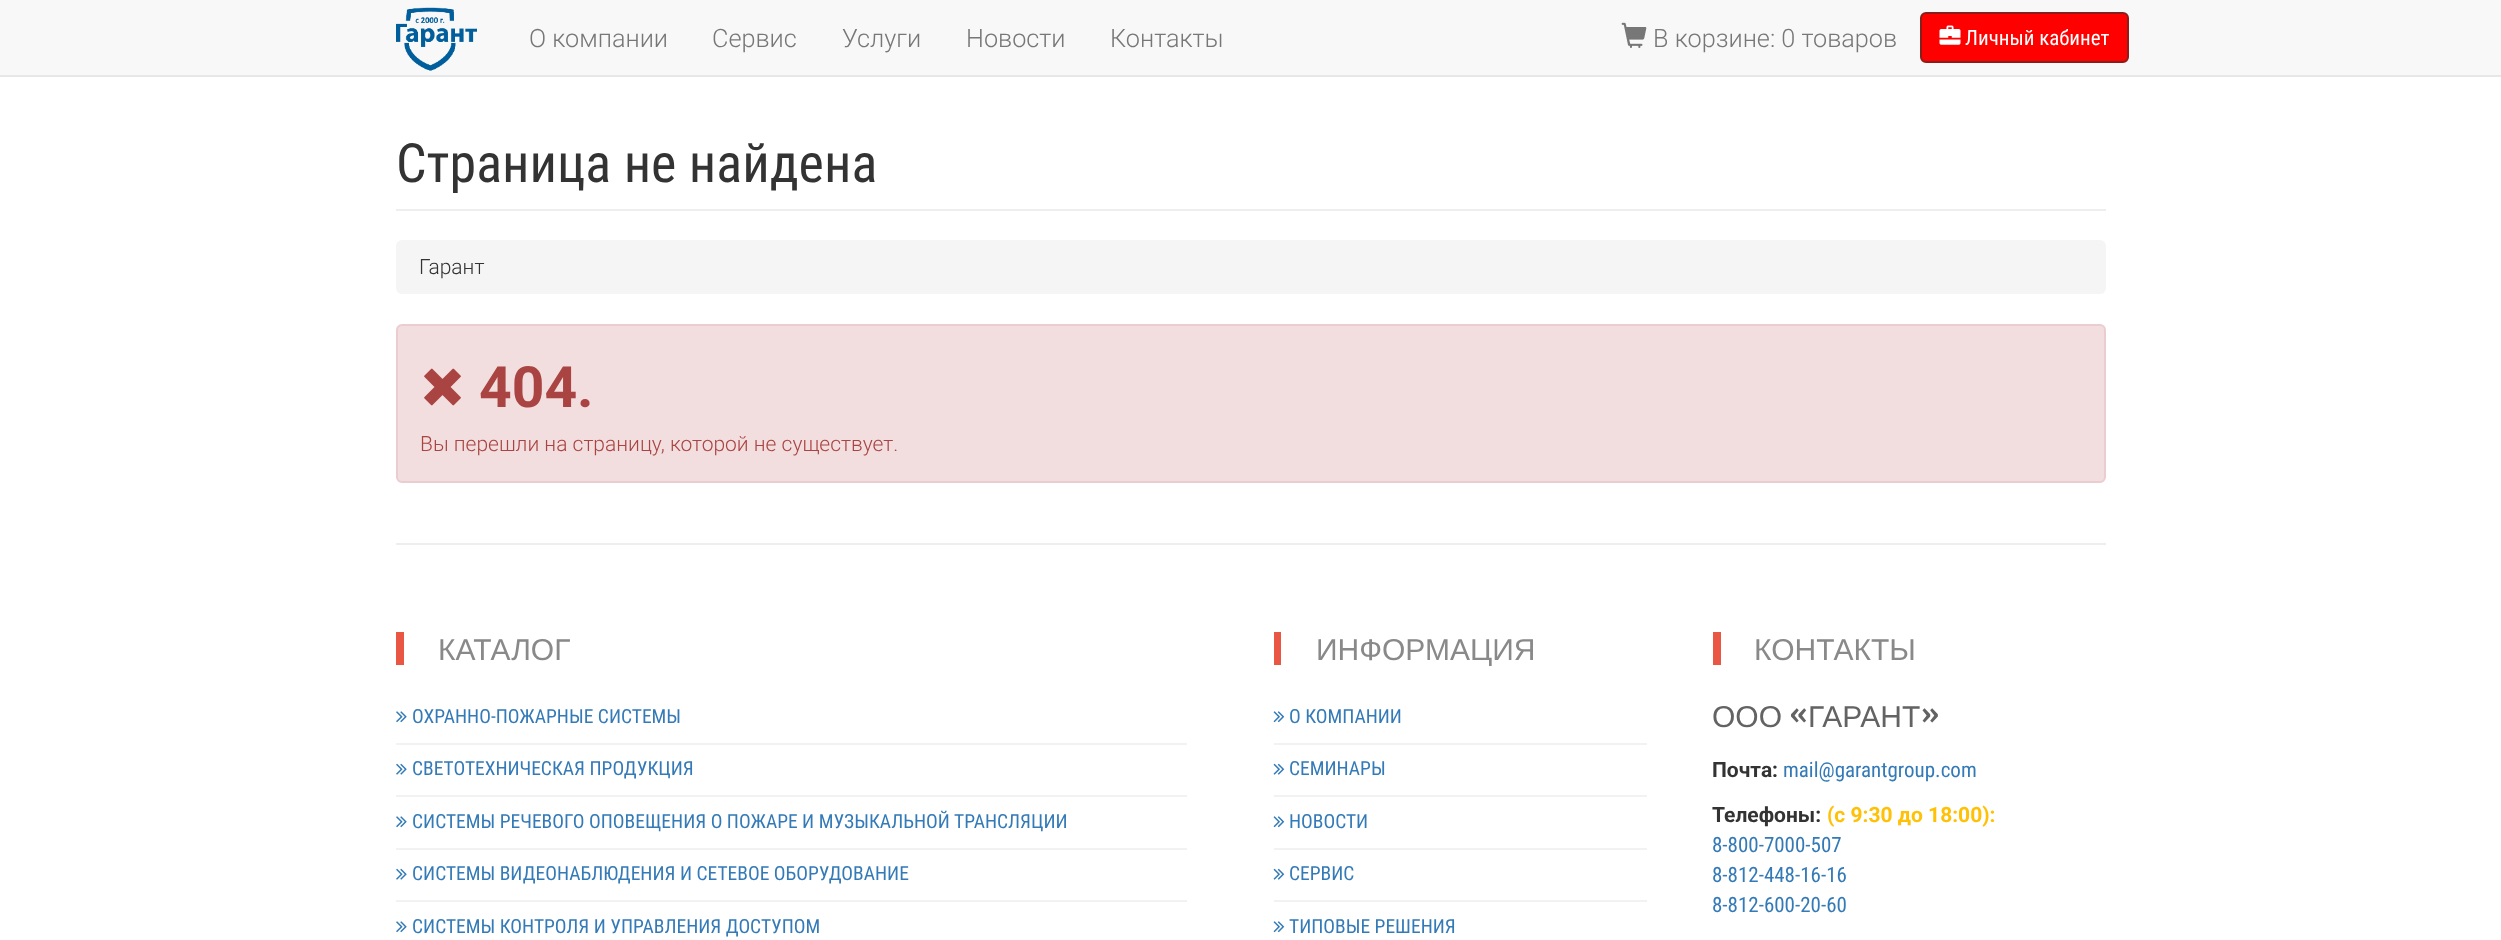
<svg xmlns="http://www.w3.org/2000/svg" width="2501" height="940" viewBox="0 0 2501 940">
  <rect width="100%" height="100%" fill="#fff"/>
  <path d="M0 0h2501v75H0z" fill="#f8f8f8"/>
  <path d="M0 75h2501v2H0z" fill="#e7e7e7"/>
  <image x="396" y="7" width="81" height="64" href="img/1.png"/>
  <image x="1621" y="22" width="26" height="26" href="img/2.png"/>
  <rect x="1921" y="13" width="207" height="49" rx="5" fill="#f00" stroke="#891e1b" stroke-width="2"/>
  <image x="1939" y="25" width="22" height="20" href="img/3.png"/>
  <path d="M396 209h1710v2H396z" fill="#eee"/>
  <rect x="396" y="240" width="1710" height="54" rx="6" fill="#f5f5f5"/>
  <rect x="397" y="325" width="1708" height="157" rx="5" fill="#f2dede" stroke="#ebccd1" stroke-width="2"/>
  <image x="424" y="368" width="37" height="38" href="img/4.png"/>
  <path d="M396 543h1710v2H396z" fill="#eee"/>
  <path d="M396 632h8v33H396z" fill="#ea5644"/>
  <path d="M396 743h791v2H396z" fill="#f2f2f2"/>
  <image x="396" y="711" width="11" height="12" href="img/5.png"/>
  <path d="M396 795h791v2H396z" fill="#f2f2f2"/>
  <image x="396" y="763" width="11" height="12" href="img/6.png"/>
  <path d="M396 848h791v2H396z" fill="#f2f2f2"/>
  <image x="396" y="816" width="11" height="12" href="img/5.png"/>
  <path d="M396 900h791v2H396z" fill="#f2f2f2"/>
  <image x="396" y="868" width="11" height="12" href="img/6.png"/>
  <image x="396" y="921" width="11" height="12" href="img/5.png"/>
  <path d="M1274 632h7v33H1274z" fill="#ea5644"/>
  <path d="M1274 743h373v2H1274z" fill="#f2f2f2"/>
  <image x="1273" y="711" width="12" height="12" href="img/7.png"/>
  <path d="M1274 795h373v2H1274z" fill="#f2f2f2"/>
  <image x="1273" y="763" width="12" height="12" href="img/8.png"/>
  <path d="M1274 848h373v2H1274z" fill="#f2f2f2"/>
  <image x="1273" y="816" width="12" height="12" href="img/7.png"/>
  <path d="M1274 900h373v2H1274z" fill="#f2f2f2"/>
  <image x="1273" y="868" width="12" height="12" href="img/8.png"/>
  <image x="1273" y="921" width="12" height="12" href="img/7.png"/>
  <path d="M1713 632h8v33H1713z" fill="#ea5644"/>
  <g font-family="Roboto" font-size="25.25" font-weight="300" fill="#777">
    <text x="529" y="47">О компании</text>
    <text x="712" y="47">Сервис</text>
    <text x="842" y="47">Услуги</text>
    <text x="966" y="47">Новости</text>
    <text x="1110" y="47">Контакты</text>
    <text x="1653" y="47">В корзине: 0 товаров</text>
  </g>
  <text x="1965" y="45" font-family="Roboto Condensed" font-size="21" fill="#fff">Личный кабинет</text>
  <text x="396" y="182" font-family="Roboto Condensed" font-size="54" fill="#333">Страница не найдена</text>
  <text x="419" y="274" font-family="Roboto" font-size="21" font-weight="300" fill="#333">Гарант</text>
  <text x="479" y="407" font-family="Roboto" font-size="57" font-weight="bold" fill="#a94442">404.</text>
  <text x="420" y="451" font-family="Roboto" font-size="21" font-weight="300" fill="#a94442">Вы перешли на страницу, которой не существует.</text>
  <text x="438" y="660" font-family="Liberation Sans" font-size="30" fill="#898989">КАТАЛОГ</text>
  <g font-family="Roboto Condensed" font-size="19.5" fill="#337ab7">
    <text x="412" y="723">ОХРАННО-ПОЖАРНЫЕ СИСТЕМЫ</text>
    <text x="412" y="775">СВЕТОТЕХНИЧЕСКАЯ ПРОДУКЦИЯ</text>
    <text x="412" y="828">СИСТЕМЫ РЕЧЕВОГО ОПОВЕЩЕНИЯ О ПОЖАРЕ И МУЗЫКАЛЬНОЙ ТРАНСЛЯЦИИ</text>
    <text x="412" y="880">СИСТЕМЫ ВИДЕОНАБЛЮДЕНИЯ И СЕТЕВОЕ ОБОРУДОВАНИЕ</text>
    <text x="412" y="933">СИСТЕМЫ КОНТРОЛЯ И УПРАВЛЕНИЯ ДОСТУПОМ</text>
  </g>
  <text x="1316" y="660" font-family="Liberation Sans" font-size="30" fill="#898989">ИНФОРМАЦИЯ</text>
  <g font-family="Roboto Condensed" font-size="19.5" fill="#337ab7">
    <text x="1289" y="723">О КОМПАНИИ</text>
    <text x="1289" y="775">СЕМИНАРЫ</text>
    <text x="1289" y="828">НОВОСТИ</text>
    <text x="1289" y="880">СЕРВИС</text>
    <text x="1289" y="933">ТИПОВЫЕ РЕШЕНИЯ</text>
  </g>
  <text x="1754" y="660" font-family="Liberation Sans" font-size="30" fill="#898989">КОНТАКТЫ</text>
  <text x="1712" y="727" font-family="Liberation Sans" font-size="30" fill="#636363">ООО</text>
  <text x="1789" y="727" font-family="Fjalla One" font-size="30" fill="#636363">«</text>
  <text x="1808" y="727" font-family="Liberation Sans" font-size="30" fill="#636363">ГАРАНТ</text>
  <text x="1920" y="727" font-family="Fjalla One" font-size="30" fill="#636363">»</text>
  <text x="1712" y="777" font-family="Roboto" font-size="21" font-weight="bold" fill="#333">Почта:</text>
  <text x="1783" y="777" font-family="Roboto Condensed" font-size="21" fill="#337ab7">mail@garantgroup.com</text>
  <text x="1712" y="822" font-family="Roboto" font-size="21" font-weight="bold" fill="#333">Телефоны:</text>
  <text x="1827" y="822" font-family="Roboto" font-size="21" font-weight="bold" fill="#ffc106">(с 9:30 до 18:00):</text>
  <g font-family="Roboto Condensed" font-size="21" fill="#337ab7">
    <text x="1712" y="852">8-800-7000-507</text>
    <text x="1712" y="882">8-812-448-16-16</text>
    <text x="1712" y="912">8-812-600-20-60</text>
  </g>
</svg>
